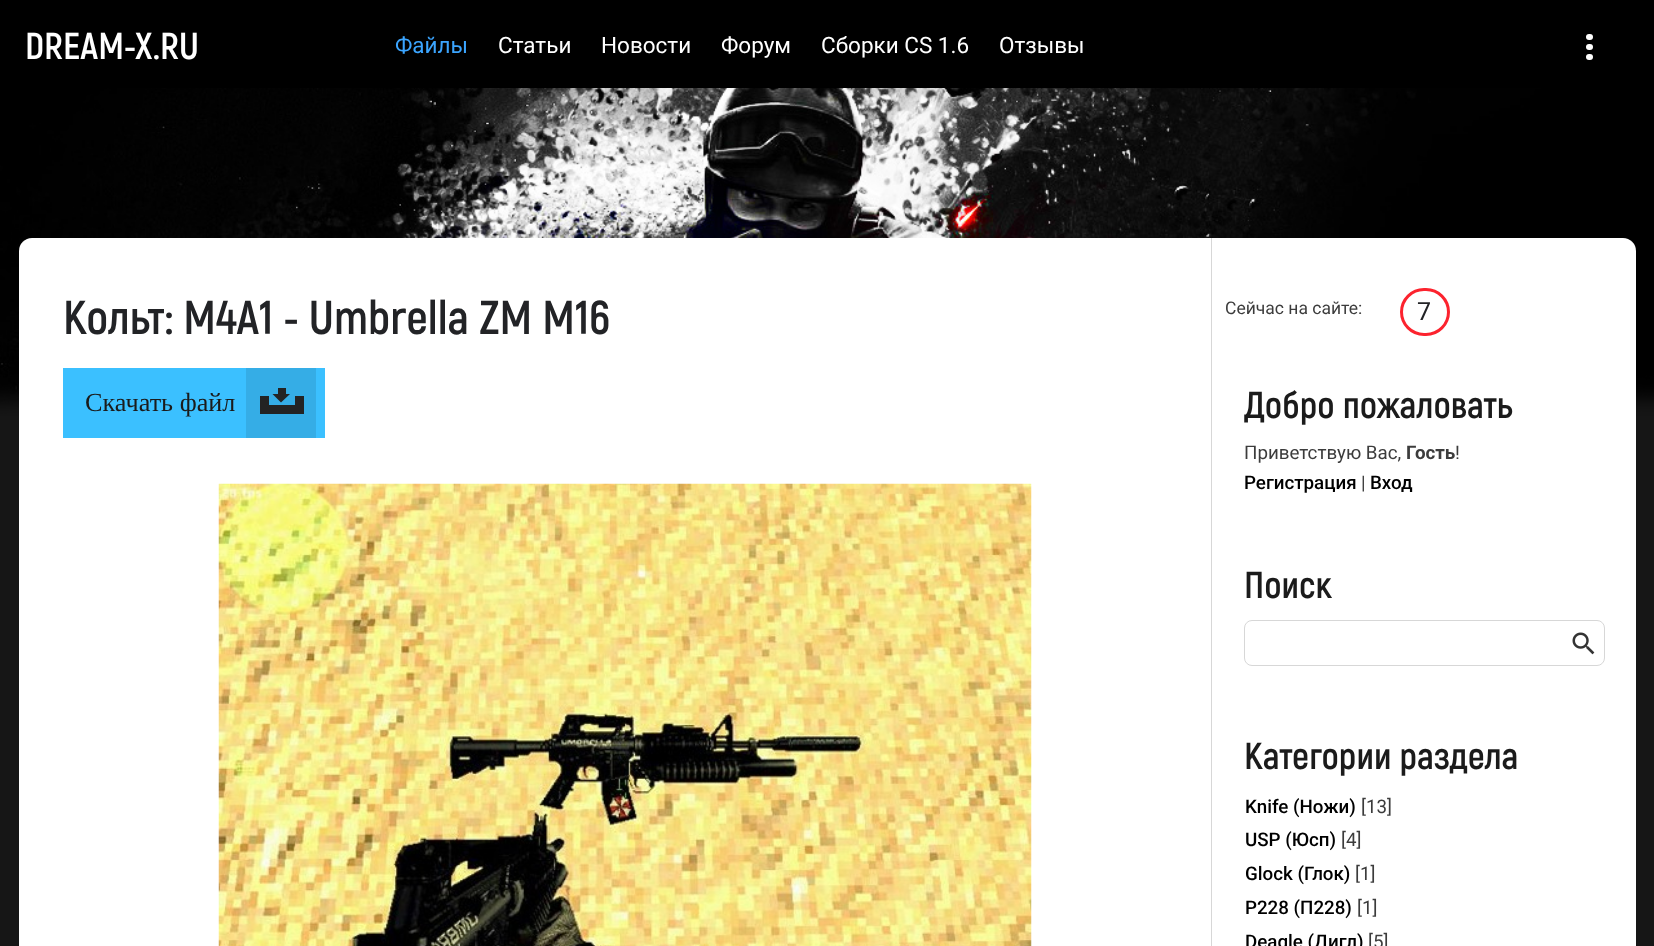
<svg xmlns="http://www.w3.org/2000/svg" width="1654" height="946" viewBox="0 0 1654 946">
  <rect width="100%" height="100%" fill="#161616"/>
  <image x="0" y="88" width="1654" height="328" href="img/1.png"/>
  <path d="M0 0h1654v88H0z" fill="#000"/>
  <rect x="1586" y="34" width="7" height="6" rx="3" fill="#fff"/>
  <rect x="1586" y="44" width="7" height="6" rx="3" fill="#fff"/>
  <rect x="1586" y="54" width="7" height="6" rx="3" fill="#fff"/>
  <rect x="19" y="238" width="1617" height="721" rx="13" fill="#fff"/>
  <path d="M63 368h262v70H63z" fill="#3bc0ff"/>
  <path d="M246 368h70v70H246z" fill="#35ade6"/>
  <path d="M295 396h9v9H295z" fill="#232323"/>
  <path d="M269 405h35v9H269z" fill="#232323"/>
  <path d="M260 396h9v18H260z" fill="#232323"/>
  <path d="M278 388h8v6H278z" fill="#232323"/>
  <path d="M272.5 394H290L281 402.5Z" fill="#232323"/>
  <image x="218" y="483" width="814" height="463" href="img/2.png"/>
  <path d="M1211 238h1v708H1211z" fill="#d7d7d7"/>
  <rect x="1401.5" y="289.5" width="47" height="45" rx="22.5" fill="none" stroke="#fc232e" stroke-width="3"/>
  <rect x="1244.5" y="620.5" width="360" height="45" rx="7.5" fill="none" stroke="#d7d7d7"/>
  <image x="1572" y="632" width="23" height="23" href="img/3.png"/>
  <text x="25" y="59" font-family="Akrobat" font-size="37.5" font-weight="bold" fill="#fff">DREAM-X.RU</text>
  <text x="395" y="53" font-family="Roboto" font-size="22.5" fill="#3ba5ff">Файлы</text>
  <g font-family="Roboto" font-size="22.5" fill="#fff">
    <text x="498" y="53">Статьи</text>
    <text x="601" y="53">Новости</text>
    <text x="721" y="53">Форум</text>
    <text x="821" y="53">Сборки CS 1.6</text>
    <text x="999" y="53">Отзывы</text>
  </g>
  <text x="63" y="334" font-family="Akrobat" font-size="47.5" font-weight="bold" fill="#222326">Кольт: M4A1 - Umbrella ZM M16</text>
  <text x="85" y="411" font-family="Liberation Serif" font-size="26.25" fill="#1b1b1b">Скачать файл</text>
  <text x="1225" y="314" font-family="Roboto" font-size="17.5" fill="#3c3c3c">Сейчас на сайте:</text>
  <text x="1417" y="320" font-family="Roboto" font-size="25" fill="#222326">7</text>
  <text x="1244" y="418" font-family="Akrobat" font-size="37.5" font-weight="bold" fill="#1b1b1b">Добро пожаловать</text>
  <text x="1244" y="459" font-family="Roboto" font-size="18.75" fill="#3c3c3c">Приветствую Вас,</text>
  <text x="1406" y="459" font-family="Roboto" font-size="18.75" font-weight="bold" fill="#3c3c3c">Гость</text>
  <text x="1455" y="459" font-family="Roboto" font-size="18.75" fill="#3c3c3c">!</text>
  <text x="1244" y="489" font-family="Roboto" font-size="18.75" font-weight="500" fill="#000">Регистрация</text>
  <text x="1361" y="489" font-family="Roboto" font-size="18.75" fill="#3c3c3c">|</text>
  <text x="1370" y="489" font-family="Roboto" font-size="18.75" font-weight="500" fill="#000">Вход</text>
  <g font-family="Akrobat" font-size="37.5" font-weight="bold" fill="#1b1b1b">
    <text x="1244" y="598">Поиск</text>
    <text x="1244" y="769">Категории раздела</text>
  </g>
  <text x="1245" y="813" font-family="Roboto" font-size="18.75" font-weight="500" fill="#000">Knife (Ножи)</text>
  <text x="1361" y="813" font-family="Roboto" font-size="18.75" fill="#3c3c3c">[13]</text>
  <text x="1245" y="846" font-family="Roboto" font-size="18.75" font-weight="500" fill="#000">USP (Юсп)</text>
  <text x="1341" y="846" font-family="Roboto" font-size="18.75" fill="#3c3c3c">[4]</text>
  <text x="1245" y="880" font-family="Roboto" font-size="18.75" font-weight="500" fill="#000">Glock (Глок)</text>
  <text x="1355" y="880" font-family="Roboto" font-size="18.75" fill="#3c3c3c">[1]</text>
  <text x="1245" y="914" font-family="Roboto" font-size="18.75" font-weight="500" fill="#000">P228 (П228)</text>
  <text x="1357" y="914" font-family="Roboto" font-size="18.75" fill="#3c3c3c">[1]</text>
  <text x="1245" y="948" font-family="Roboto" font-size="18.75" font-weight="500" fill="#000">Deagle (Дигл)</text>
  <text x="1368" y="948" font-family="Roboto" font-size="18.75" fill="#3c3c3c">[5]</text>
</svg>
